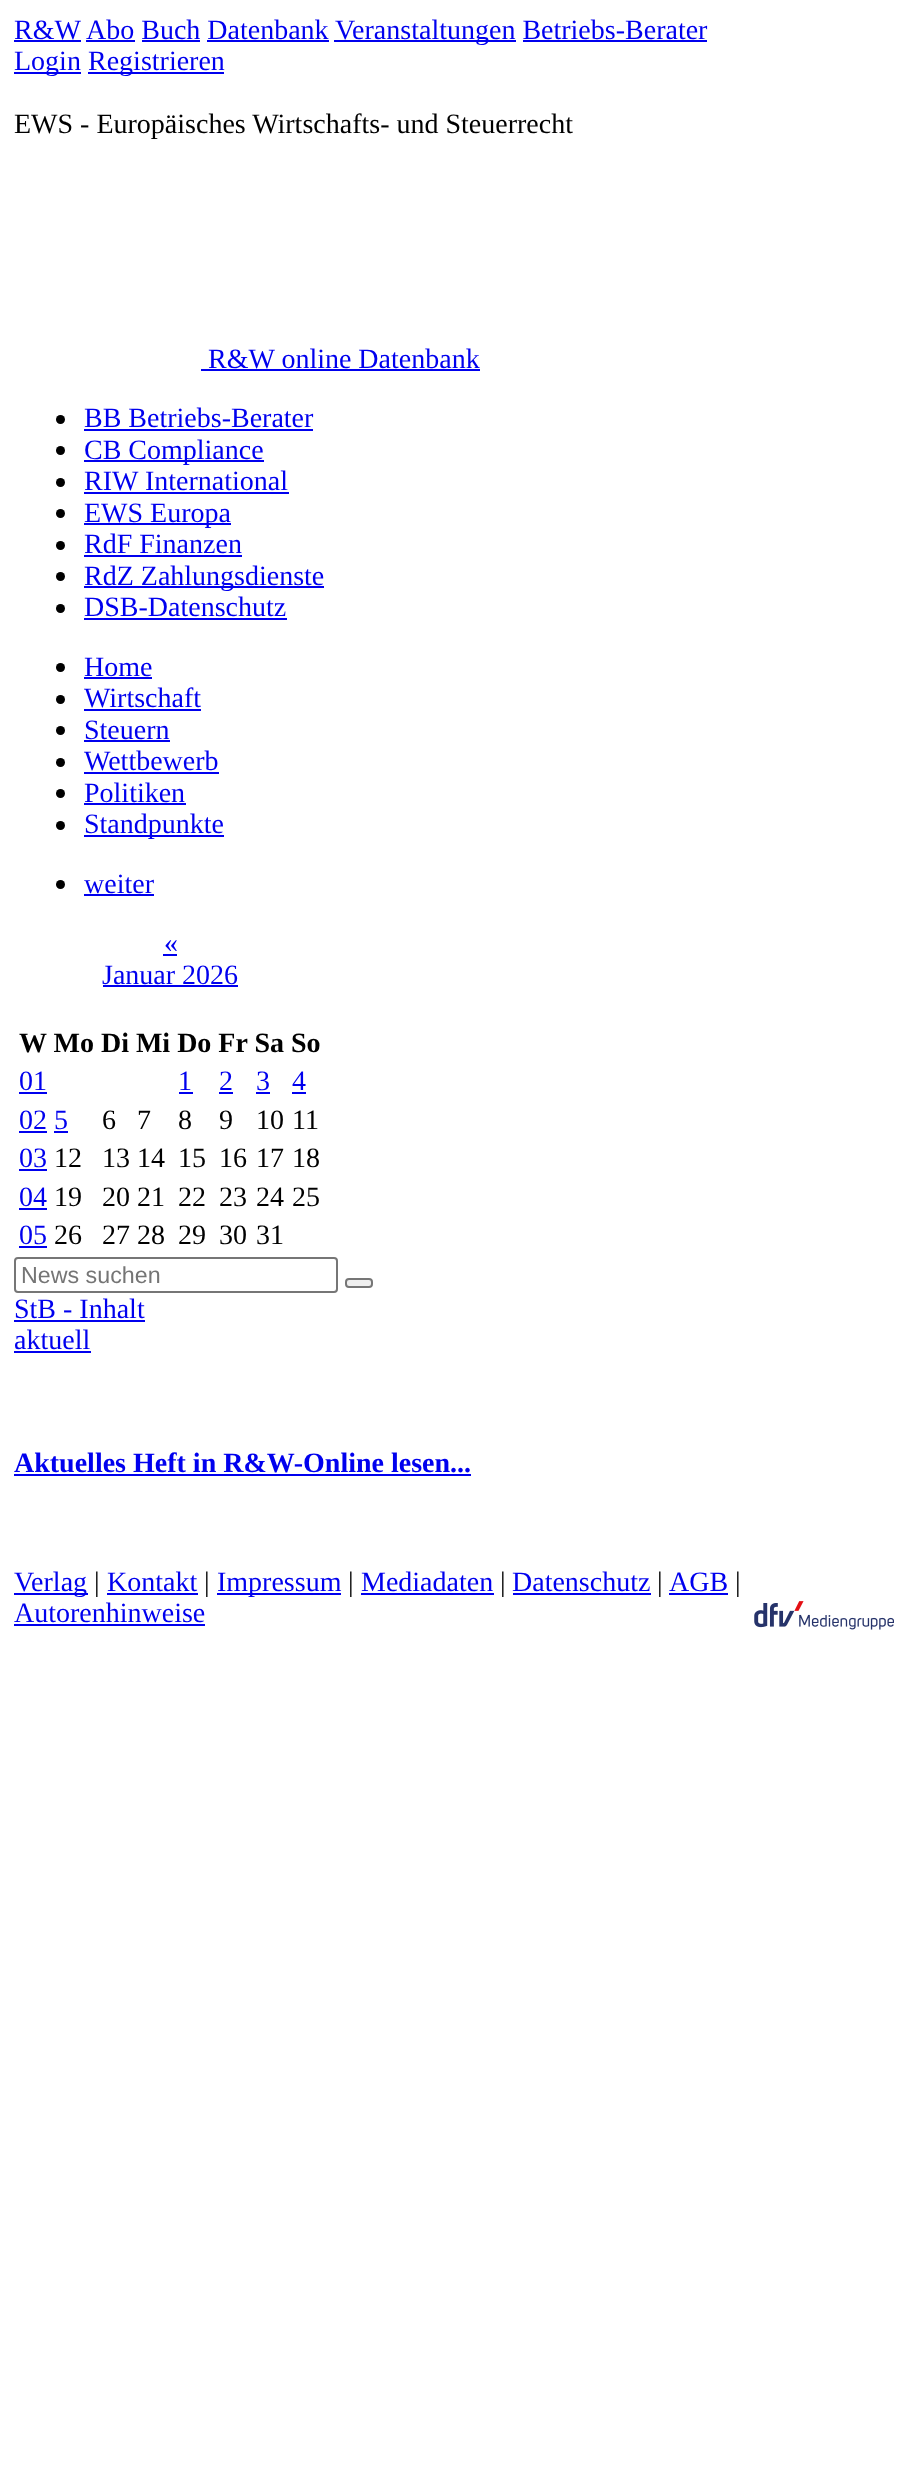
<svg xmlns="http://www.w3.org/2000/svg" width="907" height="2492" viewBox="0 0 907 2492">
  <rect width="100%" height="100%" fill="#fff"/>
  <path d="M14 40h67v2H14z" fill="#00e"/>
  <path d="M86 40h49v2H86z" fill="#00e"/>
  <path d="M334 40h182v2H334z" fill="#00e"/>
  <path d="M142 40h58v2H142z" fill="#00e"/>
  <path d="M207 40h122v2H207z" fill="#00e"/>
  <path d="M523 40h184v2H523z" fill="#00e"/>
  <path d="M14 72h67v2H14z" fill="#00e"/>
  <path d="M88 72h136v2H88z" fill="#00e"/>
  <path d="M201 369h279v2H201z" fill="#00e"/>
  <circle cx="60.5" cy="419.5" r="4.5" fill="#000"/>
  <path d="M84 429h229v2H84z" fill="#00e"/>
  <circle cx="60.5" cy="450.5" r="4.5" fill="#000"/>
  <path d="M84 460h180v2H84z" fill="#00e"/>
  <circle cx="60.5" cy="482.5" r="4.5" fill="#000"/>
  <path d="M84 492h205v2H84z" fill="#00e"/>
  <circle cx="60.5" cy="513.5" r="4.5" fill="#000"/>
  <path d="M84 523h147v2H84z" fill="#00e"/>
  <circle cx="60.5" cy="545.5" r="4.5" fill="#000"/>
  <path d="M84 555h158v2H84z" fill="#00e"/>
  <circle cx="60.5" cy="576.5" r="4.5" fill="#000"/>
  <path d="M84 586h240v2H84z" fill="#00e"/>
  <circle cx="60.5" cy="608.5" r="4.5" fill="#000"/>
  <path d="M84 618h203v2H84z" fill="#00e"/>
  <circle cx="60.5" cy="667.5" r="4.5" fill="#000"/>
  <path d="M84 677h68v2H84z" fill="#00e"/>
  <circle cx="60.5" cy="699.5" r="4.5" fill="#000"/>
  <path d="M84 709h117v2H84z" fill="#00e"/>
  <circle cx="60.5" cy="730.5" r="4.5" fill="#000"/>
  <path d="M84 740h86v2H84z" fill="#00e"/>
  <circle cx="60.5" cy="762.5" r="4.5" fill="#000"/>
  <path d="M84 772h135v2H84z" fill="#00e"/>
  <circle cx="60.5" cy="793.5" r="4.5" fill="#000"/>
  <path d="M84 803h102v2H84z" fill="#00e"/>
  <circle cx="60.5" cy="825.5" r="4.5" fill="#000"/>
  <path d="M84 835h140v2H84z" fill="#00e"/>
  <circle cx="60.5" cy="884.5" r="4.5" fill="#000"/>
  <path d="M84 894h70v2H84z" fill="#00e"/>
  <path d="M163 954h14v2H163z" fill="#00e"/>
  <path d="M103 985h135v2H103z" fill="#00e"/>
  <path d="M19 1092h28v2H19z" fill="#00e"/>
  <path d="M179 1092h14v2H179z" fill="#00e"/>
  <path d="M219 1092h14v2H219z" fill="#00e"/>
  <path d="M256 1092h14v2H256z" fill="#00e"/>
  <path d="M292 1092h14v2H292z" fill="#00e"/>
  <path d="M19 1131h28v2H19z" fill="#00e"/>
  <path d="M54 1131h14v2H54z" fill="#00e"/>
  <path d="M19 1169h28v2H19z" fill="#00e"/>
  <path d="M19 1208h28v2H19z" fill="#00e"/>
  <path d="M19 1246h28v2H19z" fill="#00e"/>
  <rect x="15" y="1258" width="322" height="34" rx="3" fill="none" stroke="#767676" stroke-width="2"/>
  <rect x="346" y="1279" width="26" height="8" rx="3" fill="#efefef" stroke="#767676" stroke-width="2"/>
  <path d="M14 1320h131v2H14z" fill="#00e"/>
  <path d="M14 1351h77v2H14z" fill="#00e"/>
  <path d="M14 1474h457v2H14z" fill="#00e"/>
  <path d="M14 1593h74v2H14z" fill="#00e"/>
  <path d="M107 1593h91v2H107z" fill="#00e"/>
  <path d="M217 1593h124v2H217z" fill="#00e"/>
  <path d="M361 1593h133v2H361z" fill="#00e"/>
  <path d="M513 1593h138v2H513z" fill="#00e"/>
  <path d="M669 1593h59v2H669z" fill="#00e"/>
  <path d="M14 1624h191v2H14z" fill="#00e"/>
  <image x="754" y="1601" width="140" height="29" href="img/1.png"/>
  <g font-family="Liberation Serif" font-size="28" fill="#00e">
    <text x="14" y="39">R&amp;W</text>
    <text x="86" y="39">Abo Buch Datenbank</text>
    <text x="335" y="39">Veranstaltungen Betriebs-Berater</text>
    <text x="14" y="70">Login</text>
    <text x="88" y="70">Registrieren</text>
  </g>
  <text x="14" y="133" font-family="Liberation Serif" font-size="28" fill="#000">EWS - Europäisches Wirtschafts- und Steuerrecht</text>
  <g font-family="Liberation Serif" font-size="28" fill="#00e">
    <text x="208" y="368">R&amp;W online Datenbank</text>
    <text x="84" y="427">BB Betriebs-Berater</text>
    <text x="84" y="459">CB Compliance</text>
    <text x="84" y="490">RIW International</text>
    <text x="84" y="522">EWS Europa</text>
    <text x="84" y="553">RdF Finanzen</text>
    <text x="84" y="585">RdZ Zahlungsdienste</text>
    <text x="84" y="616">DSB-Datenschutz</text>
    <text x="84" y="676">Home</text>
    <text x="84" y="707">Wirtschaft</text>
    <text x="84" y="739">Steuern</text>
    <text x="84" y="770">Wettbewerb</text>
    <text x="84" y="802">Politiken</text>
    <text x="84" y="833">Standpunkte</text>
    <text x="84" y="893">weiter</text>
    <text x="164" y="952">«</text>
    <text x="102" y="984">Januar 2026</text>
  </g>
  <text x="19" y="1052" font-family="Liberation Serif" font-size="28" font-weight="bold" fill="#000">W Mo Di Mi Do Fr Sa So</text>
  <g font-family="Liberation Serif" font-size="28" fill="#00e">
    <text x="19" y="1090">01</text>
    <text x="178" y="1090">1</text>
    <text x="219" y="1090">2</text>
    <text x="256" y="1090">3</text>
    <text x="292" y="1090">4</text>
    <text x="19" y="1129">02 5</text>
  </g>
  <g font-family="Liberation Serif" font-size="28" fill="#000">
    <text x="102" y="1129">6</text>
    <text x="137" y="1129">7</text>
    <text x="178" y="1129">8</text>
    <text x="219" y="1129">9</text>
    <text x="256" y="1129">10</text>
    <text x="292" y="1129">11</text>
  </g>
  <text x="19" y="1167" font-family="Liberation Serif" font-size="28" fill="#00e">03</text>
  <g font-family="Liberation Serif" font-size="28" fill="#000">
    <text x="54" y="1167">12</text>
    <text x="102" y="1167">13 14</text>
    <text x="178" y="1167">15</text>
    <text x="219" y="1167">16</text>
    <text x="256" y="1167">17</text>
    <text x="292" y="1167">18</text>
  </g>
  <text x="19" y="1206" font-family="Liberation Serif" font-size="28" fill="#00e">04</text>
  <g font-family="Liberation Serif" font-size="28" fill="#000">
    <text x="54" y="1206">19</text>
    <text x="102" y="1206">20 21</text>
    <text x="178" y="1206">22</text>
    <text x="219" y="1206">23</text>
    <text x="256" y="1206">24</text>
    <text x="292" y="1206">25</text>
  </g>
  <text x="19" y="1244" font-family="Liberation Serif" font-size="28" fill="#00e">05</text>
  <g font-family="Liberation Serif" font-size="28" fill="#000">
    <text x="54" y="1244">26</text>
    <text x="102" y="1244">27 28</text>
    <text x="178" y="1244">29</text>
    <text x="219" y="1244">30</text>
    <text x="256" y="1244">31</text>
  </g>
  <text x="21" y="1283" font-family="Liberation Sans" font-size="23.25" fill="#757575">News suchen</text>
  <g font-family="Liberation Serif" font-size="28" fill="#00e">
    <text x="14" y="1318">StB - Inhalt</text>
    <text x="14" y="1349">aktuell</text>
  </g>
  <text x="14" y="1472" font-family="Liberation Serif" font-size="28" font-weight="bold" fill="#00e">Aktuelles Heft in R&amp;W-Online lesen...</text>
  <text x="14" y="1591" font-family="Liberation Serif" font-size="28" fill="#00e">Verlag</text>
  <text x="94" y="1591" font-family="Liberation Serif" font-size="28" fill="#000">|</text>
  <text x="107" y="1591" font-family="Liberation Serif" font-size="28" fill="#00e">Kontakt</text>
  <text x="204" y="1591" font-family="Liberation Serif" font-size="28" fill="#000">|</text>
  <text x="217" y="1591" font-family="Liberation Serif" font-size="28" fill="#00e">Impressum</text>
  <text x="348" y="1591" font-family="Liberation Serif" font-size="28" fill="#000">|</text>
  <text x="361" y="1591" font-family="Liberation Serif" font-size="28" fill="#00e">Mediadaten</text>
  <text x="500" y="1591" font-family="Liberation Serif" font-size="28" fill="#000">|</text>
  <text x="512" y="1591" font-family="Liberation Serif" font-size="28" fill="#00e">Datenschutz</text>
  <text x="657" y="1591" font-family="Liberation Serif" font-size="28" fill="#000">|</text>
  <text x="669" y="1591" font-family="Liberation Serif" font-size="28" fill="#00e">AGB</text>
  <text x="735" y="1591" font-family="Liberation Serif" font-size="28" fill="#000">|</text>
  <text x="14" y="1622" font-family="Liberation Serif" font-size="28" fill="#00e">Autorenhinweise</text>
</svg>
